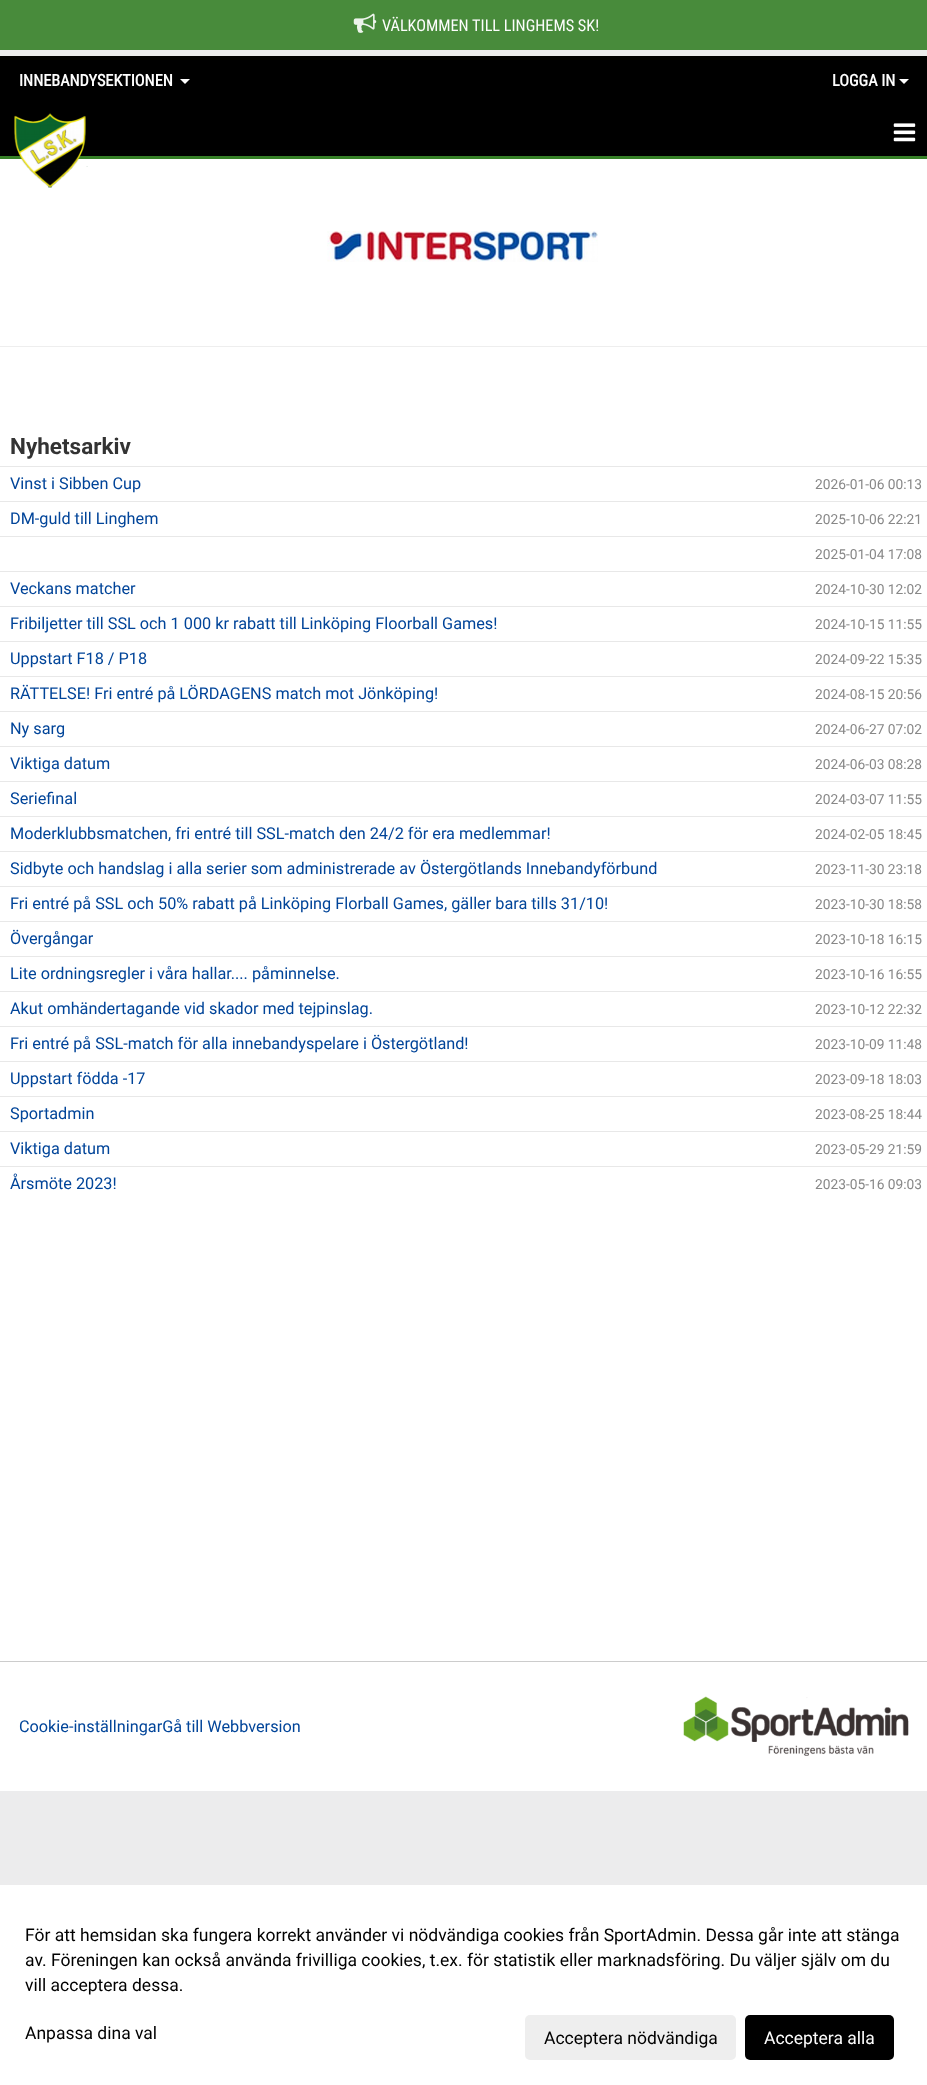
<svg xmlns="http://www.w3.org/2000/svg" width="927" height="2085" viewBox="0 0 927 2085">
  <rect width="100%" height="100%" fill="#ececed"/>
  <path d="M0 0h927v50H0z" fill="#488b3b"/>
  <image x="353" y="13" width="24" height="20" href="img/1.png"/>
  <path d="M0 56h927v100H0z" fill="#000"/>
  <path d="M180 79H190L185 84Z" fill="#fff"/>
  <path d="M899 79H909L904 84Z" fill="#fff"/>
  <path d="M0 159h927v1502H0z" fill="#fff"/>
  <path d="M0 156h927v3H0z" fill="#368027"/>
  <image x="14" y="113" width="74" height="75" href="img/2.png"/>
  <image x="893" y="123" width="23" height="19" href="img/3.png"/>
  <image x="327" y="231" width="271" height="31" href="img/4.png"/>
  <path d="M0 346h927v1H0z" fill="#eee"/>
  <path d="M0 466h927v1H0z" fill="#e8e8e8"/>
  <path d="M0 501h927v1H0z" fill="#e8e8e8"/>
  <path d="M0 536h927v1H0z" fill="#e8e8e8"/>
  <path d="M0 571h927v1H0z" fill="#e8e8e8"/>
  <path d="M0 606h927v1H0z" fill="#e8e8e8"/>
  <path d="M0 641h927v1H0z" fill="#e8e8e8"/>
  <path d="M0 676h927v1H0z" fill="#e8e8e8"/>
  <path d="M0 711h927v1H0z" fill="#e8e8e8"/>
  <path d="M0 746h927v1H0z" fill="#e8e8e8"/>
  <path d="M0 781h927v1H0z" fill="#e8e8e8"/>
  <path d="M0 816h927v1H0z" fill="#e8e8e8"/>
  <path d="M0 851h927v1H0z" fill="#e8e8e8"/>
  <path d="M0 886h927v1H0z" fill="#e8e8e8"/>
  <path d="M0 921h927v1H0z" fill="#e8e8e8"/>
  <path d="M0 956h927v1H0z" fill="#e8e8e8"/>
  <path d="M0 991h927v1H0z" fill="#e8e8e8"/>
  <path d="M0 1026h927v1H0z" fill="#e8e8e8"/>
  <path d="M0 1061h927v1H0z" fill="#e8e8e8"/>
  <path d="M0 1096h927v1H0z" fill="#e8e8e8"/>
  <path d="M0 1131h927v1H0z" fill="#e8e8e8"/>
  <path d="M0 1166h927v1H0z" fill="#e8e8e8"/>
  <path d="M0 1662h927v129H0z" fill="#fff"/>
  <path d="M0 1661h927v1H0z" fill="#ccc"/>
  <image x="683" y="1696" width="226" height="60" href="img/5.png"/>
  <path d="M0 1885h927v200H0z" fill="#fff"/>
  <rect x="525" y="2015" width="211" height="45" rx="5" fill="#eee"/>
  <rect x="745" y="2015" width="149" height="45" rx="5" fill="#000"/>
  <text x="382" y="31" font-family="Roboto Condensed" font-size="16.25" fill="#fdfdfd">VÄLKOMMEN TILL LINGHEMS SK!</text>
  <g font-family="Roboto Condensed" font-size="16.25" font-weight="bold" fill="#fdfdfd">
    <text x="19" y="86">INNEBANDYSEKTIONEN</text>
    <text x="832" y="86">LOGGA IN</text>
  </g>
  <text x="10" y="454" font-family="Roboto" font-size="22.5" font-weight="bold" fill="#333">Nyhetsarkiv</text>
  <text x="10" y="489" font-family="Roboto" font-size="16.25" fill="#049">Vinst i Sibben Cup</text>
  <text x="815" y="489" font-family="Roboto" font-size="13.75" fill="#888">2026-01-06 00:13</text>
  <text x="10" y="524" font-family="Roboto" font-size="16.25" fill="#049">DM-guld till Linghem</text>
  <g font-family="Roboto" font-size="13.75" fill="#888">
    <text x="815" y="524">2025-10-06 22:21</text>
    <text x="815" y="559">2025-01-04 17:08</text>
  </g>
  <text x="10" y="594" font-family="Roboto" font-size="16.25" fill="#049">Veckans matcher</text>
  <text x="815" y="594" font-family="Roboto" font-size="13.75" fill="#888">2024-10-30 12:02</text>
  <text x="10" y="629" font-family="Roboto" font-size="16.25" fill="#049">Fribiljetter till SSL och 1 000 kr rabatt till Linköping Floorball Games!</text>
  <text x="815" y="629" font-family="Roboto" font-size="13.75" fill="#888">2024-10-15 11:55</text>
  <text x="10" y="664" font-family="Roboto" font-size="16.25" fill="#049">Uppstart F18 / P18</text>
  <text x="815" y="664" font-family="Roboto" font-size="13.75" fill="#888">2024-09-22 15:35</text>
  <text x="10" y="699" font-family="Roboto" font-size="16.25" fill="#049">RÄTTELSE! Fri entré på LÖRDAGENS match mot Jönköping!</text>
  <text x="815" y="699" font-family="Roboto" font-size="13.75" fill="#888">2024-08-15 20:56</text>
  <text x="10" y="734" font-family="Roboto" font-size="16.25" fill="#049">Ny sarg</text>
  <text x="815" y="734" font-family="Roboto" font-size="13.75" fill="#888">2024-06-27 07:02</text>
  <text x="10" y="769" font-family="Roboto" font-size="16.25" fill="#049">Viktiga datum</text>
  <text x="815" y="769" font-family="Roboto" font-size="13.75" fill="#888">2024-06-03 08:28</text>
  <text x="10" y="804" font-family="Roboto" font-size="16.25" fill="#049">Seriefinal</text>
  <text x="815" y="804" font-family="Roboto" font-size="13.75" fill="#888">2024-03-07 11:55</text>
  <text x="10" y="839" font-family="Roboto" font-size="16.25" fill="#049">Moderklubbsmatchen, fri entré till SSL-match den 24/2 för era medlemmar!</text>
  <text x="815" y="839" font-family="Roboto" font-size="13.75" fill="#888">2024-02-05 18:45</text>
  <text x="10" y="874" font-family="Roboto" font-size="16.25" fill="#049">Sidbyte och handslag i alla serier som administrerade av Östergötlands Innebandyförbund</text>
  <text x="815" y="874" font-family="Roboto" font-size="13.75" fill="#888">2023-11-30 23:18</text>
  <text x="10" y="909" font-family="Roboto" font-size="16.25" fill="#049">Fri entré på SSL och 50% rabatt på Linköping Florball Games, gäller bara tills 31/10!</text>
  <text x="815" y="909" font-family="Roboto" font-size="13.75" fill="#888">2023-10-30 18:58</text>
  <text x="10" y="944" font-family="Roboto" font-size="16.25" fill="#049">Övergångar</text>
  <text x="815" y="944" font-family="Roboto" font-size="13.75" fill="#888">2023-10-18 16:15</text>
  <text x="10" y="979" font-family="Roboto" font-size="16.25" fill="#049">Lite ordningsregler i våra hallar.... påminnelse.</text>
  <text x="815" y="979" font-family="Roboto" font-size="13.75" fill="#888">2023-10-16 16:55</text>
  <text x="10" y="1014" font-family="Roboto" font-size="16.25" fill="#049">Akut omhändertagande vid skador med tejpinslag.</text>
  <text x="815" y="1014" font-family="Roboto" font-size="13.75" fill="#888">2023-10-12 22:32</text>
  <text x="10" y="1049" font-family="Roboto" font-size="16.25" fill="#049">Fri entré på SSL-match för alla innebandyspelare i Östergötland!</text>
  <text x="815" y="1049" font-family="Roboto" font-size="13.75" fill="#888">2023-10-09 11:48</text>
  <text x="10" y="1084" font-family="Roboto" font-size="16.25" fill="#049">Uppstart födda -17</text>
  <text x="815" y="1084" font-family="Roboto" font-size="13.75" fill="#888">2023-09-18 18:03</text>
  <text x="10" y="1119" font-family="Roboto" font-size="16.25" fill="#049">Sportadmin</text>
  <text x="815" y="1119" font-family="Roboto" font-size="13.75" fill="#888">2023-08-25 18:44</text>
  <text x="10" y="1154" font-family="Roboto" font-size="16.25" fill="#049">Viktiga datum</text>
  <text x="815" y="1154" font-family="Roboto" font-size="13.75" fill="#888">2023-05-29 21:59</text>
  <text x="10" y="1189" font-family="Roboto" font-size="16.25" fill="#049">Årsmöte 2023!</text>
  <text x="815" y="1189" font-family="Roboto" font-size="13.75" fill="#888">2023-05-16 09:03</text>
  <text x="19" y="1732" font-family="Roboto" font-size="16.25" fill="#049">Cookie-inställningarGå till Webbversion</text>
  <g font-family="Roboto" font-size="17.5" fill="#000">
    <text x="25" y="1941">För att hemsidan ska fungera korrekt använder vi nödvändiga cookies från SportAdmin. Dessa går inte att stänga</text>
    <text x="25" y="1966">av. Föreningen kan också använda frivilliga cookies, t.ex. för statistik eller marknadsföring. Du väljer själv om du</text>
    <text x="25" y="1991">vill acceptera dessa.</text>
    <text x="25" y="2039">Anpassa dina val</text>
    <text x="544" y="2044">Acceptera nödvändiga</text>
  </g>
  <text x="764" y="2044" font-family="Roboto" font-size="17.5" fill="#fdfdfd">Acceptera alla</text>
</svg>
